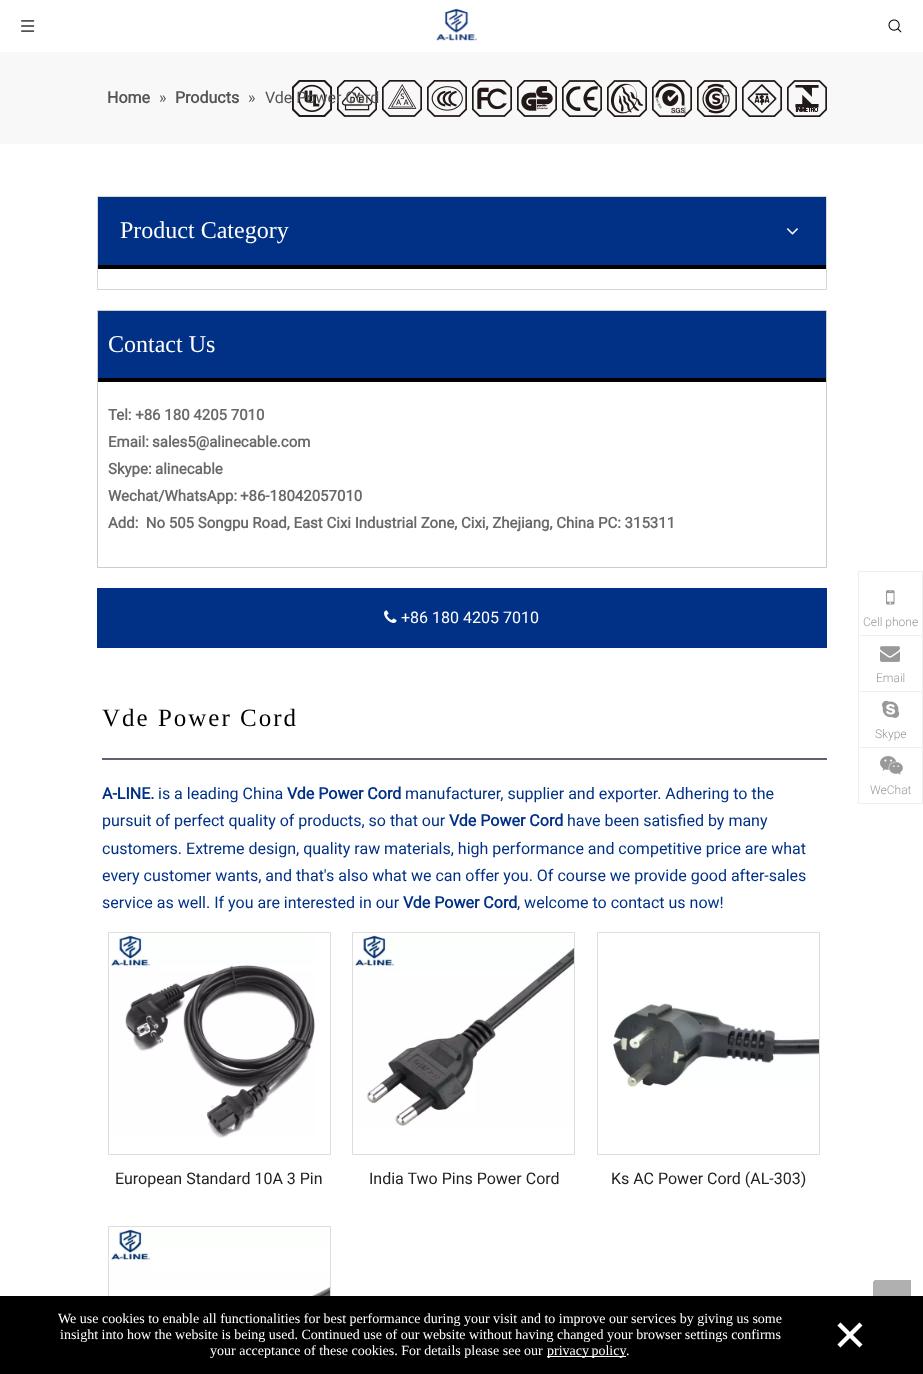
<svg xmlns="http://www.w3.org/2000/svg" width="923" height="1374" viewBox="0 0 923 1374">
  <rect width="100%" height="100%" fill="#f8f8f8"/>
  <path d="M0 0h923v52H0z" fill="#fff"/>
  <image x="21" y="20" width="14" height="12" href="img/1.png"/>
  <image x="436" y="8" width="42" height="33" href="img/2.png"/>
  <image x="888" y="19" width="14" height="14" href="img/3.png"/>
  <image x="292" y="80" width="535" height="37" href="img/4.png"/>
  <path d="M0 144h923v1152H0z" fill="#fff"/>
  <path d="M97.5 196.5h729v93H97.5z" fill="none" stroke="#d6d6d6"/>
  <path d="M98 197h728v68H98z" fill="#003187"/>
  <path d="M98 265h728v4H98z" fill="#000"/>
  <image x="786" y="228" width="12" height="7" href="img/5.png"/>
  <path d="M97.5 310.5h729v257H97.5z" fill="none" stroke="#ccc"/>
  <path d="M98 311h728v67H98z" fill="#003187"/>
  <path d="M98 378h728v4H98z" fill="#000"/>
  <path d="M97 588h730v60H97z" fill="#003187"/>
  <image x="384" y="610" width="13" height="13" href="img/6.png"/>
  <path d="M102 758h725v2H102z" fill="#5e6277"/>
  <path d="M108.5 932.5h222v222H108.5z" fill="none" stroke="#ddd"/>
  <image x="111" y="935" width="204" height="203" href="img/7.png"/>
  <path d="M352.5 932.5h222v222H352.5z" fill="none" stroke="#ddd"/>
  <image x="353" y="935" width="221" height="191" href="img/8.png"/>
  <path d="M597.5 932.5h222v222H597.5z" fill="none" stroke="#ddd"/>
  <image x="612" y="1003" width="207" height="84" href="img/9.png"/>
  <path d="M108.5 1226.5h222v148H108.5z" fill="none" stroke="#ddd"/>
  <image x="109" y="1229" width="221" height="67" href="img/10.png"/>
  <path d="M858 571h65v1H858z" fill="#eee"/>
  <path d="M922 571h1v64H922z" fill="#eee"/>
  <path d="M858 571h1v64H858z" fill="#eee"/>
  <image x="886" y="590" width="9" height="15" href="img/11.png"/>
  <path d="M858 635h65v1H858z" fill="#eee"/>
  <path d="M922 635h1v56H922z" fill="#eee"/>
  <path d="M858 635h1v56H858z" fill="#eee"/>
  <image x="880" y="646" width="20" height="16" href="img/12.png"/>
  <path d="M858 691h65v1H858z" fill="#eee"/>
  <path d="M922 691h1v56H922z" fill="#eee"/>
  <path d="M858 691h1v56H858z" fill="#eee"/>
  <image x="882" y="700" width="18" height="18" href="img/13.png"/>
  <path d="M858.5 747.5h64v56H858.5z" fill="none" stroke="#eee"/>
  <image x="880" y="756" width="23" height="19" href="img/14.png"/>
  <image x="873" y="1280" width="38" height="16" href="img/15.png"/>
  <path d="M0 1296h923v78H0z" fill="#000"/>
  <path d="M547 1356h79v1H547z" fill="#fff"/>
  <text x="107" y="103" font-family="Roboto" font-size="16" font-weight="bold" fill="#545454">Home</text>
  <text x="159" y="103" font-family="Roboto" font-size="16" fill="#545454">»</text>
  <text x="175" y="103" font-family="Roboto" font-size="16" font-weight="bold" fill="#545454">Products</text>
  <g font-family="Roboto" font-size="16" fill="#545454">
    <text x="248" y="103">»</text>
    <text x="265" y="103">Vde Power Cord</text>
  </g>
  <g font-family="Liberation Serif" font-size="24" fill="#fff">
    <text x="120" y="238">Product Category</text>
    <text x="108" y="352">Contact Us</text>
  </g>
  <g font-family="Roboto" font-size="15" font-weight="bold" fill="#696969">
    <text x="108" y="420">Tel: +86 180 4205 7010</text>
    <text x="108" y="447">Email:</text>
    <text x="152" y="447">sales5@alinecable.com</text>
    <text x="108" y="474">Skype:</text>
    <text x="155" y="474">alinecable</text>
    <text x="108" y="501">Wechat/WhatsApp:</text>
    <text x="240" y="501">+86-18042057010</text>
    <text x="108" y="528" xml:space="preserve">Add:  No 505 Songpu Road, East Cixi Industrial Zone, Cixi, Zhejiang, China PC: 315311</text>
  </g>
  <text x="401" y="623" font-family="Roboto" font-size="16" fill="#fff">+86 180 4205 7010</text>
  <text x="102" y="726" font-family="Liberation Serif" font-size="25" letter-spacing="2" fill="#000">Vde Power Cord</text>
  <text x="102" y="799" font-family="Roboto" font-size="16" font-weight="bold" fill="#003187">A-LINE.</text>
  <text x="158" y="799" font-family="Roboto" font-size="16" fill="#003187">is a leading China</text>
  <text x="287" y="799" font-family="Roboto" font-size="16" font-weight="bold" fill="#003187">Vde Power Cord</text>
  <g font-family="Roboto" font-size="16" fill="#003187">
    <text x="405" y="799">manufacturer, supplier and exporter. Adhering to the</text>
    <text x="102" y="826">pursuit of perfect quality of products, so that our</text>
  </g>
  <text x="449" y="826" font-family="Roboto" font-size="16" font-weight="bold" fill="#003187">Vde Power Cord</text>
  <g font-family="Roboto" font-size="16" fill="#003187">
    <text x="567" y="826">have been satisfied by many</text>
    <text x="102" y="854">customers. Extreme design, quality raw materials, high performance and competitive price are what</text>
    <text x="102" y="881">every customer wants, and that's also what we can offer you. Of course we provide good after-sales</text>
    <text x="102" y="908">service as well. If you are interested in our</text>
  </g>
  <text x="403" y="908" font-family="Roboto" font-size="16" font-weight="bold" fill="#003187">Vde Power Cord</text>
  <text x="517" y="908" font-family="Roboto" font-size="16" fill="#003187">, welcome to contact us now!</text>
  <g font-family="Roboto" font-size="16" fill="#222">
    <text x="115" y="1184">European Standard 10A 3 Pin</text>
    <text x="369" y="1184">India Two Pins Power Cord</text>
    <text x="611" y="1184">Ks AC Power Cord (AL-303)</text>
  </g>
  <g font-family="Roboto" font-size="12" font-weight="300" fill="#999">
    <text x="863" y="626">Cell phone</text>
    <text x="876" y="682">Email</text>
    <text x="875" y="738">Skype</text>
    <text x="870" y="794">WeChat</text>
  </g>
  <g font-family="Liberation Serif" font-size="14" fill="#fff">
    <text x="58" y="1323">We use cookies to enable all functionalities for best performance during your visit and to improve our services by giving us some</text>
    <text x="60" y="1339">insight into how the website is being used. Continued use of our website without having changed your browser settings confirms</text>
    <text x="210" y="1355">your acceptance of these cookies. For details please see our</text>
    <text x="547" y="1355" word-spacing="-1">privacy policy</text>
    <text x="626" y="1355">.</text>
  </g>
  <text x="833" y="1355" font-family="Liberation Serif" font-size="60" font-weight="bold" fill="#fff">×</text>
</svg>
